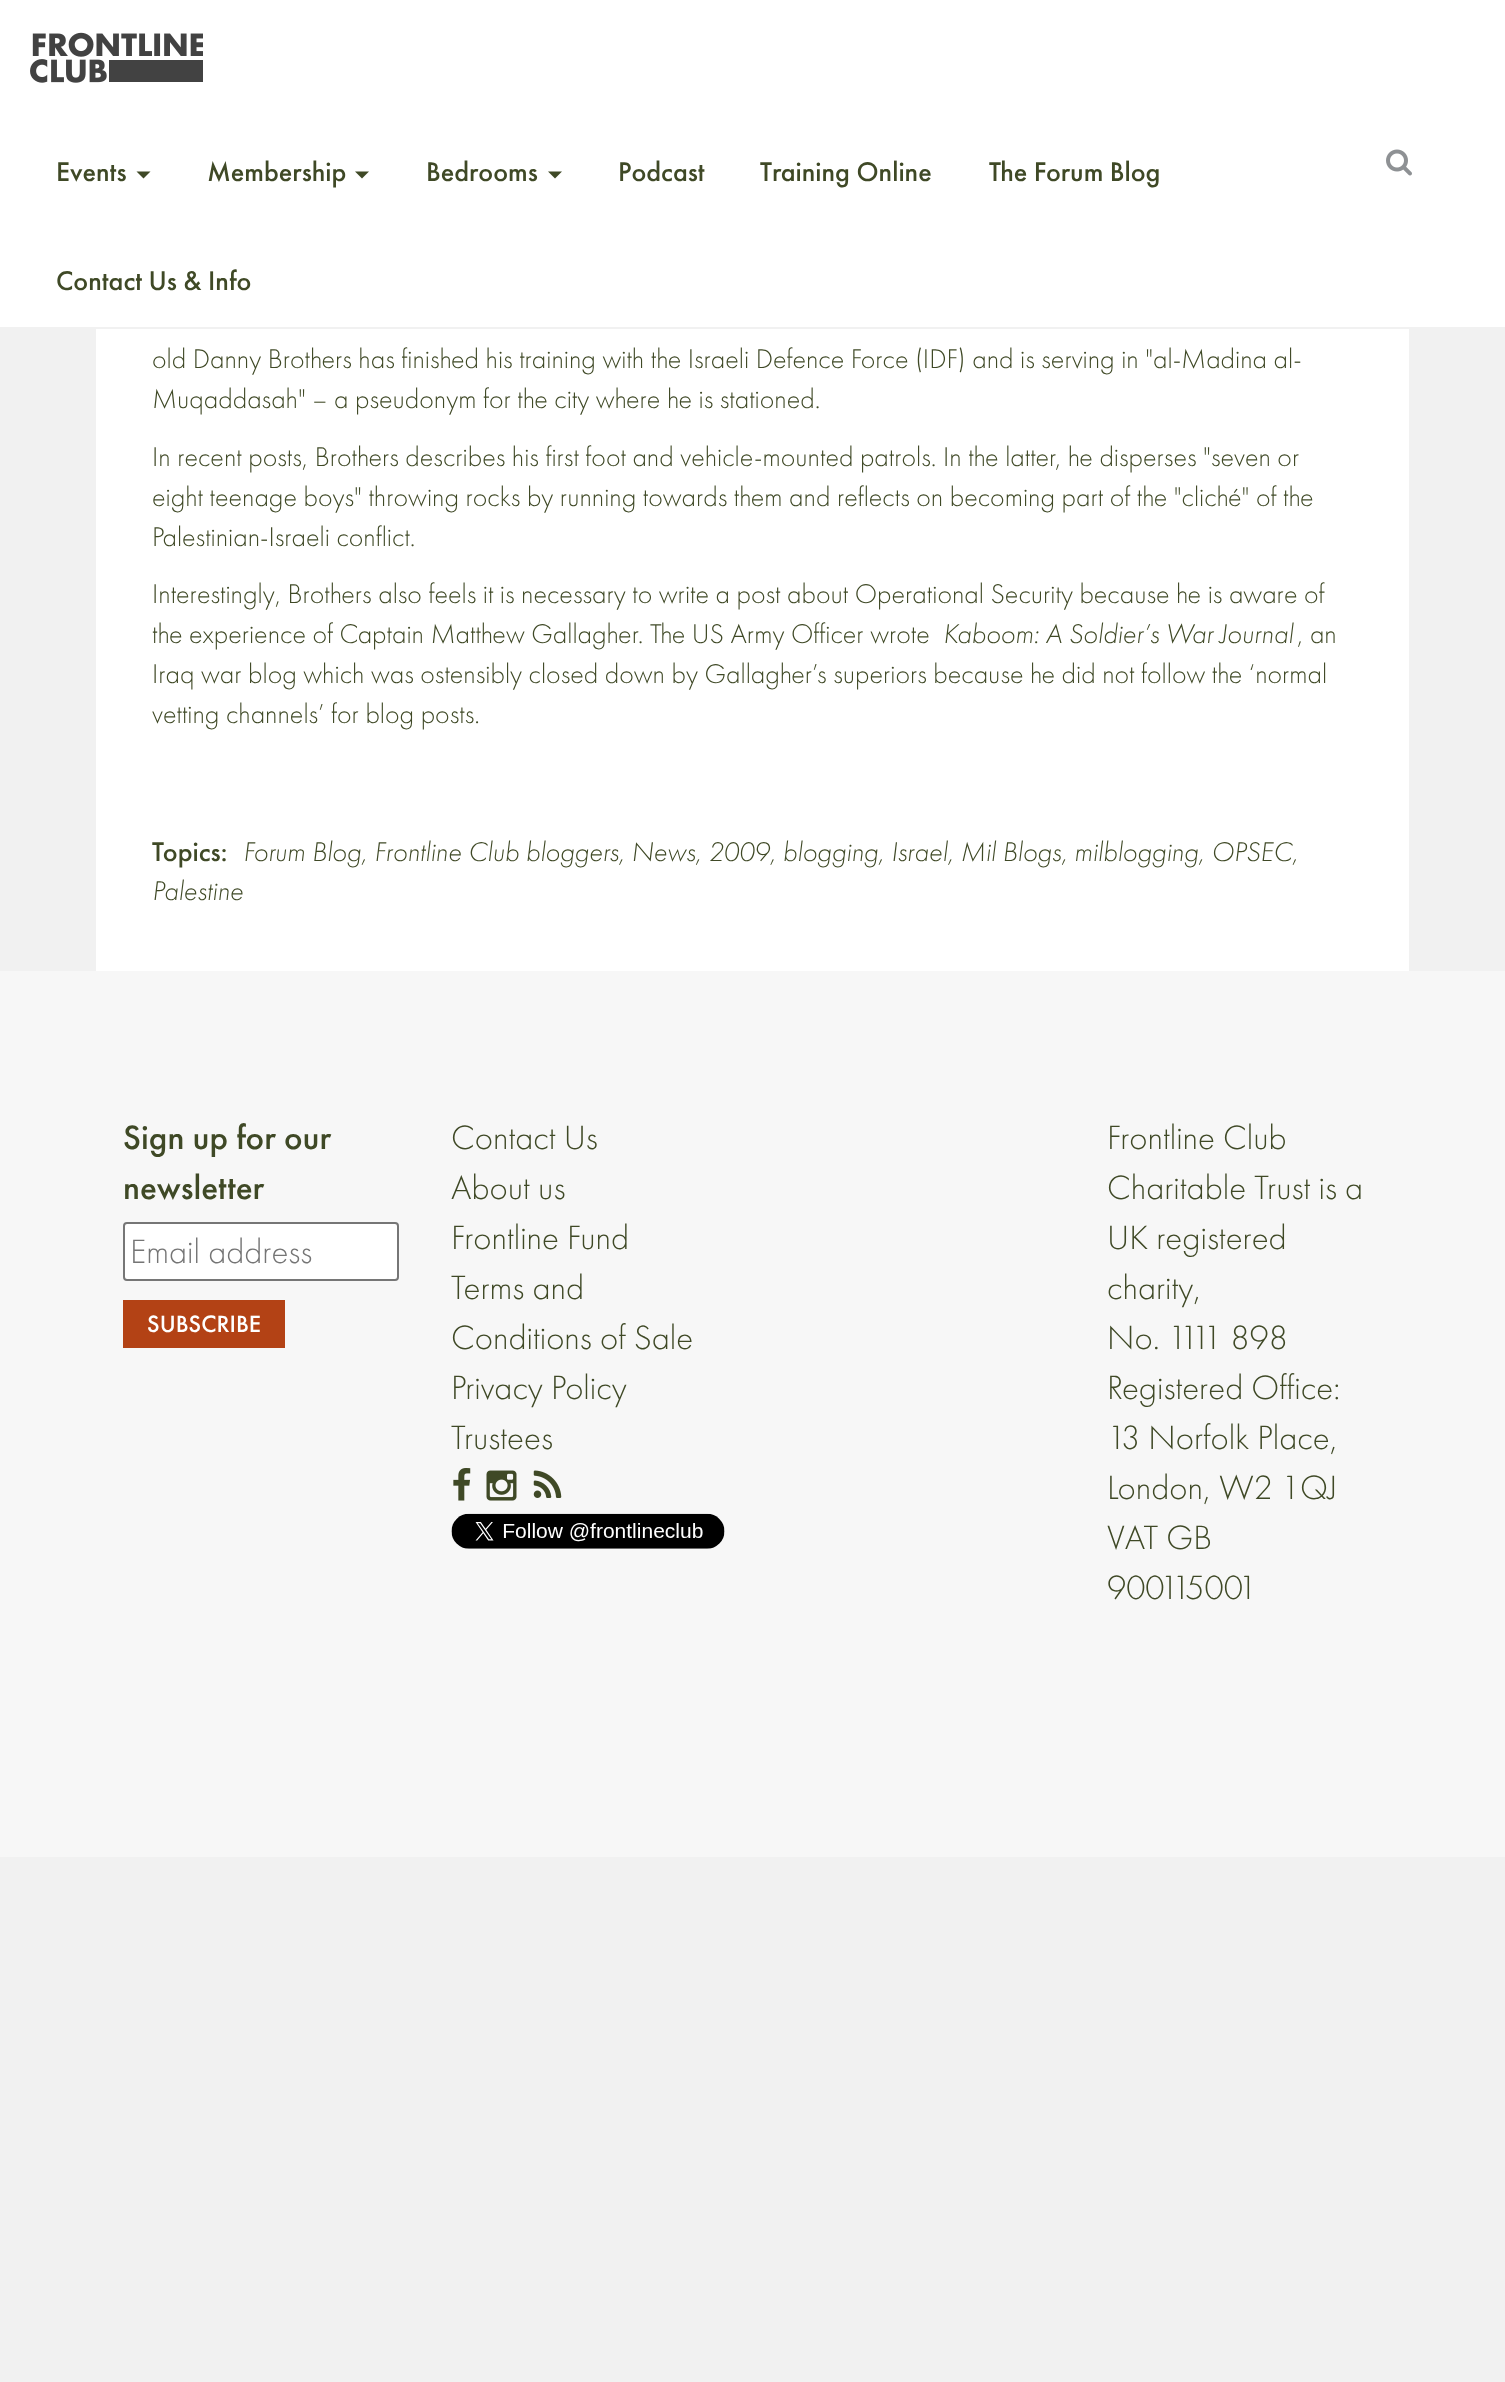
<svg xmlns="http://www.w3.org/2000/svg" width="1505" height="2382" viewBox="0 0 1505 2382">
  <rect width="100%" height="100%" fill="#f1f1f1"/>
  <path d="M0 0h1505v327H0z" fill="#fff"/>
  <image x="30" y="32" width="173" height="51" href="img/1.png"/>
  <path d="M136.5 171.5H150.5L143.5 178.5Z" fill="#3f4926"/>
  <path d="M355 171.5H369L362 178.5Z" fill="#3f4926"/>
  <path d="M548 171.5H562L555 178.5Z" fill="#3f4926"/>
  <image x="1386" y="149" width="26" height="27" href="img/2.png"/>
  <path d="M96 329h1313v642H96z" fill="#fff"/>
  <path d="M0 971h1505v886H0z" fill="#f7f7f7"/>
  <rect x="124" y="1223" width="274" height="57" rx="3" fill="#fff" stroke="#767676" stroke-width="2"/>
  <path d="M123 1300h162v48H123z" fill="#b34215"/>
  <image x="453" y="1468" width="18" height="33" href="img/3.png"/>
  <image x="486" y="1470" width="31" height="31" href="img/4.png"/>
  <image x="533" y="1470" width="29" height="28" href="img/5.png"/>
  <image x="451" y="1513" width="274" height="36" href="img/6.png"/>
  <g font-family="Futura PT" font-size="28" font-weight="500" fill="#3f4926">
    <text x="56" y="181">Events</text>
    <text x="207" y="181">Membership</text>
    <text x="426" y="181">Bedrooms</text>
    <text x="618" y="181">Podcast</text>
    <text x="760" y="181">Training Online</text>
    <text x="989" y="181">The Forum Blog</text>
    <text x="56" y="290">Contact Us &amp; Info</text>
  </g>
  <g font-family="Futura PT" font-size="28" font-weight="300" fill="#3f4926">
    <text x="152" y="368">old Danny Brothers has finished his training with the Israeli Defence Force (IDF) and is serving in "al-Madina al-</text>
    <text x="152" y="408">Muqaddasah" – a pseudonym for the city where he is stationed.</text>
    <text x="152" y="466">In recent posts, Brothers describes his first foot and vehicle-mounted patrols. In the latter, he disperses "seven or</text>
    <text x="152" y="506">eight teenage boys" throwing rocks by running towards them and reflects on becoming part of the "cliché" of the</text>
    <text x="152" y="546">Palestinian-Israeli conflict.</text>
    <text x="152" y="603">Interestingly, Brothers also feels it is necessary to write a post about Operational Security because he is aware of</text>
    <text x="152" y="643">the experience of Captain Matthew Gallagher. The US Army Officer wrote</text>
  </g>
  <text x="943" y="643" font-family="Futura PT" font-size="28" font-weight="300" font-style="italic" fill="#3f4926">Kaboom: A Soldier’s War Journal</text>
  <g font-family="Futura PT" font-size="28" font-weight="300" fill="#3f4926">
    <text x="1297" y="643">, an</text>
    <text x="152" y="683">Iraq war blog which was ostensibly closed down by Gallagher’s superiors because he did not follow the ‘normal</text>
    <text x="152" y="723">vetting channels’ for blog posts.</text>
  </g>
  <text x="152" y="861" font-family="Futura PT" font-size="28" font-weight="500" fill="#3f4926">Topics:</text>
  <g font-family="Futura PT" font-size="28" font-weight="300" font-style="italic" fill="#3f4926">
    <text x="243" y="861">Forum Blog, Frontline Club bloggers, News, 2009, blogging, Israel, Mil Blogs, milblogging, OPSEC,</text>
    <text x="152" y="900">Palestine</text>
  </g>
  <g font-family="Futura PT" font-size="35" font-weight="500" fill="#3f4926">
    <text x="123" y="1149">Sign up for our</text>
    <text x="123" y="1199">newsletter</text>
  </g>
  <text x="130" y="1263" font-family="Futura PT" font-size="35" font-weight="300" fill="#757575">Email address</text>
  <text x="147" y="1332" font-family="Futura PT" font-size="24.5" font-weight="500" fill="#fff">SUBSCRIBE</text>
  <g font-family="Futura PT" font-size="35" font-weight="300" fill="#3f4926">
    <text x="451" y="1149">Contact Us</text>
    <text x="451" y="1199">About us</text>
    <text x="451" y="1249">Frontline Fund</text>
    <text x="451" y="1299">Terms and</text>
    <text x="451" y="1349">Conditions of Sale</text>
    <text x="451" y="1399">Privacy Policy</text>
    <text x="451" y="1449">Trustees</text>
    <text x="1107" y="1149">Frontline Club</text>
    <text x="1107" y="1199">Charitable Trust is a</text>
    <text x="1107" y="1249">UK registered</text>
    <text x="1107" y="1299">charity,</text>
    <text x="1107" y="1349">No. 1111 898</text>
    <text x="1107" y="1399">Registered Office:</text>
    <text x="1107" y="1449">13 Norfolk Place,</text>
    <text x="1107" y="1499">London, W2 1QJ</text>
    <text x="1107" y="1549">VAT GB</text>
    <text x="1107" y="1599">900115001</text>
  </g>
</svg>
